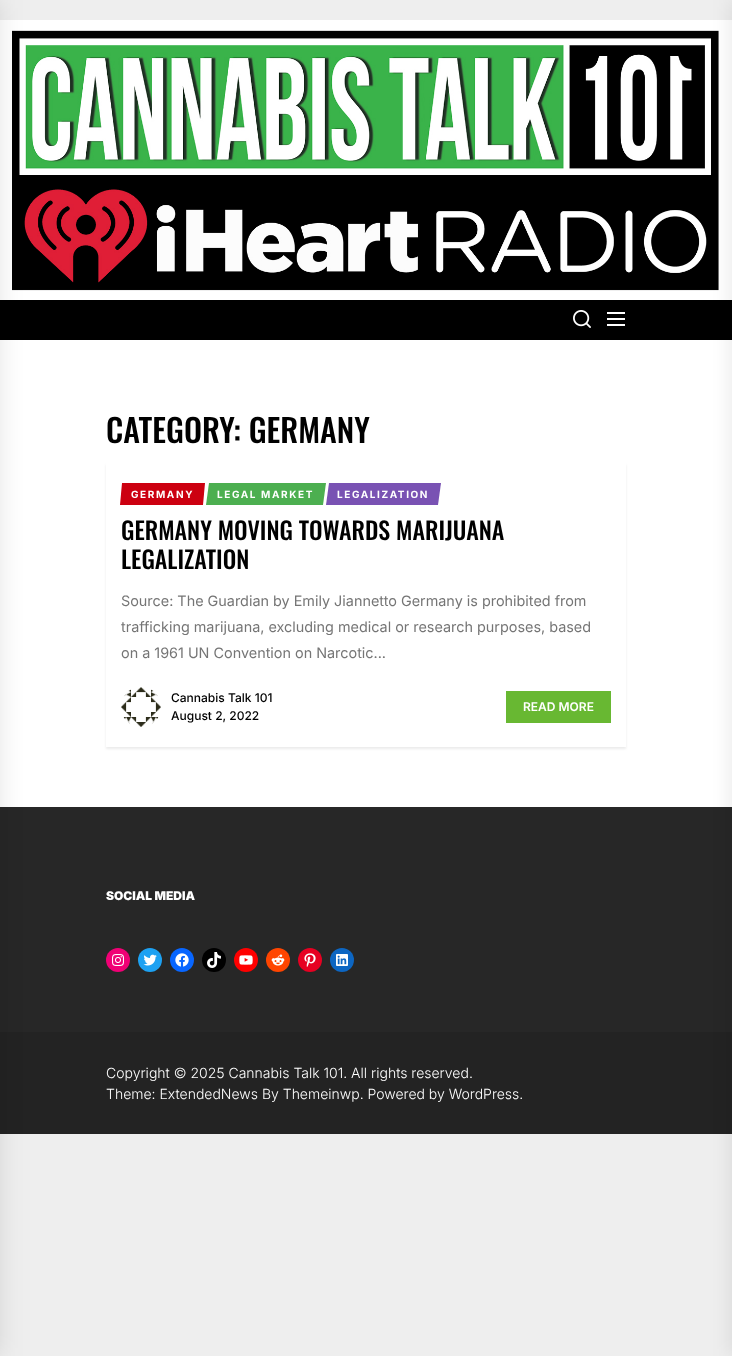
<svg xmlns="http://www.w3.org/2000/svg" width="732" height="1356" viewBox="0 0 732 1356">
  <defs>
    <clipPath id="clip1"><path d="M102 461H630V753H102ZM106 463H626V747H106Z" clip-rule="evenodd"/></clipPath>
  </defs>
  <rect width="100%" height="100%" fill="#eee"/>
  <path d="M0 20h732v787H0z" fill="#fff"/>
  <image x="12" y="30" width="707" height="261" href="img/1.png"/>
  <path d="M0 300h732v40H0z" fill="#000"/>
  <path d="M0 807h732v225H0z" fill="#272727"/>
  <path d="M0 1032h732v102H0z" fill="#232323"/>
  <path d="M-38 0h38v1356H-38z" fill="#0000001a" filter="blur(12.5px)"/>
  <path d="M732 0h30v1356H732z" fill="#0000001a" filter="blur(10px)"/>
  <image x="573" y="310" width="18" height="18" href="img/2.png"/>
  <image x="607" y="312" width="18" height="14" href="img/3.png"/>
  <g clip-path="url(#clip1)">
    <path d="M106 465h520v284H106z" fill="#00000014" filter="blur(1px)"/>
  </g>
  <path d="M122 483H205L203 505H120Z" fill="#cc0010"/>
  <path d="M209 483H326L323 505H206Z" fill="#4caf50"/>
  <path d="M329 483H441L438 505H326Z" fill="#7952b3"/>
  <image x="121" y="687" width="40" height="40" href="img/4.png"/>
  <path d="M506 691h105v32H506z" fill="#68b832"/>
  <circle cx="118" cy="960" r="12" fill="#f00075"/>
  <image x="112" y="954" width="12" height="12" href="img/5.png"/>
  <circle cx="150" cy="960" r="12" fill="#1da1f2"/>
  <image x="143" y="954" width="14" height="12" href="img/6.png"/>
  <circle cx="182" cy="960" r="12" fill="#0866ff"/>
  <image x="175" y="953" width="14" height="14" href="img/7.png"/>
  <circle cx="214" cy="960" r="12" fill="#000"/>
  <image x="207" y="952" width="14" height="16" href="img/8.png"/>
  <circle cx="246" cy="960" r="12" fill="#f00"/>
  <image x="239" y="955" width="14" height="10" href="img/9.png"/>
  <circle cx="278" cy="960" r="12" fill="#ff4500"/>
  <image x="271" y="954" width="14" height="12" href="img/10.png"/>
  <circle cx="310" cy="960" r="12" fill="#e60122"/>
  <image x="304" y="953" width="12" height="14" href="img/11.png"/>
  <circle cx="342" cy="960" r="12" fill="#0d66c2"/>
  <image x="336" y="954" width="12" height="12" href="img/12.png"/>
  <text x="106" y="443" font-family="Oswald" font-size="32" font-weight="500" fill="#000">CATEGORY: GERMANY</text>
  <g font-family="Inter" font-size="10" font-weight="bold" letter-spacing="1.6" fill="#fff">
    <text x="131" y="498">GERMANY</text>
    <text x="217" y="498">LEGAL MARKET</text>
    <text x="337" y="498">LEGALIZATION</text>
  </g>
  <g font-family="Oswald" font-size="24" font-weight="500" fill="#000">
    <text x="121" y="540">GERMANY MOVING TOWARDS MARIJUANA</text>
    <text x="121" y="569">LEGALIZATION</text>
  </g>
  <g font-family="Inter" font-size="14.4" fill="#757575">
    <text x="121" y="606">Source: The Guardian by Emily Jiannetto Germany is prohibited from</text>
    <text x="121" y="632">trafficking marijuana, excluding medical or research purposes, based</text>
    <text x="121" y="658">on a 1961 UN Convention on Narcotic...</text>
  </g>
  <g font-family="Inter" font-size="12" font-weight="500" fill="#000">
    <text x="171" y="702">Cannabis Talk 101</text>
    <text x="171" y="720">August 2, 2022</text>
  </g>
  <text x="523" y="711" font-family="Inter" font-size="12" font-weight="600" fill="#fff">READ MORE</text>
  <text x="106" y="900" font-family="Inter" font-size="12" font-weight="900" fill="#fff">SOCIAL MEDIA</text>
  <g font-family="Inter" font-size="14" font-weight="300" fill="#fff">
    <text x="106" y="1078">Copyright © 2025 Cannabis Talk 101. All rights reserved.</text>
    <text x="106" y="1099">Theme: ExtendedNews By Themeinwp. Powered by WordPress.</text>
  </g>
</svg>
